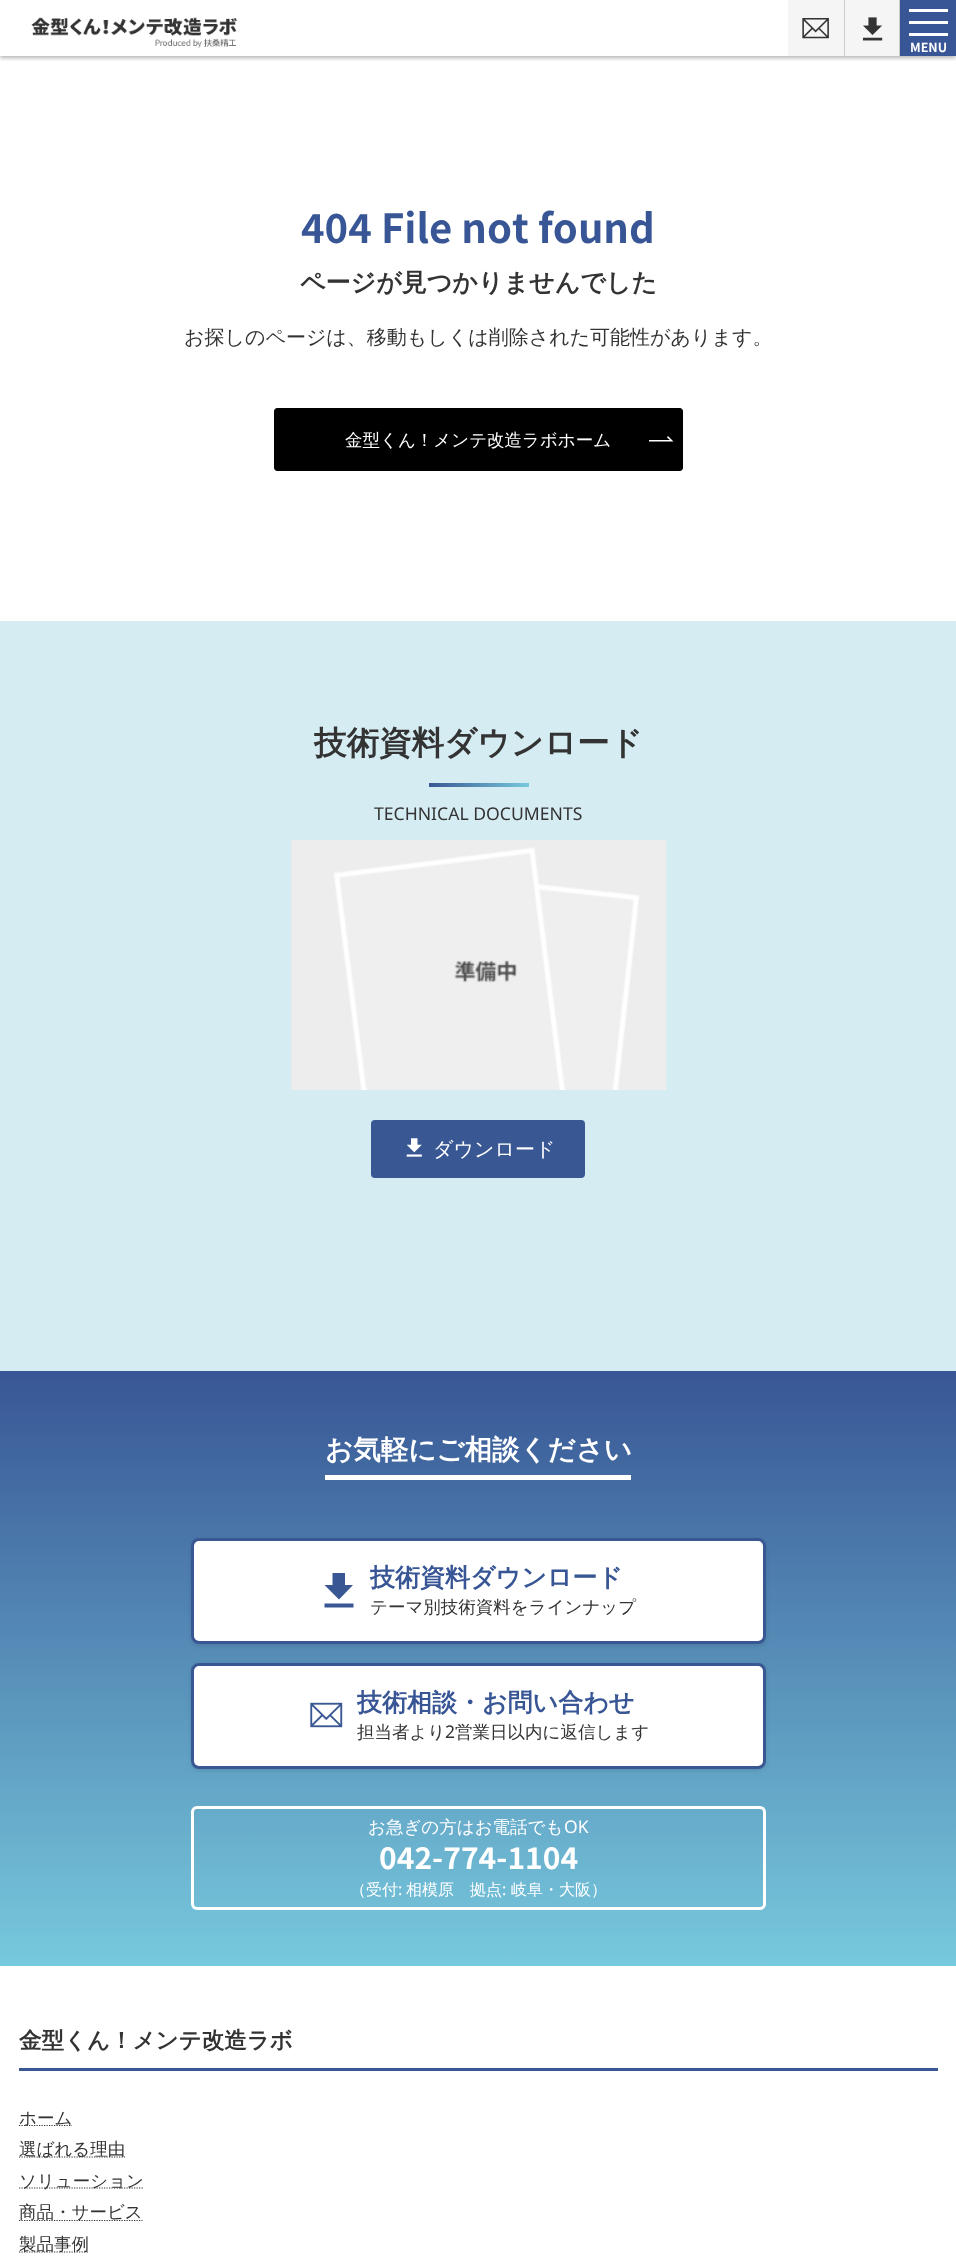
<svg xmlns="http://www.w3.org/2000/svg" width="956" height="2257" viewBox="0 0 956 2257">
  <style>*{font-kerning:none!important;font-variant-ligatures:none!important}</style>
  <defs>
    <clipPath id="clip1"><path d="M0 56h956v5H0z"/></clipPath>
    <linearGradient id="g1" gradientUnits="userSpaceOnUse" x1="429" y1="784" x2="529" y2="784"><stop offset="0" stop-color="#395793"/><stop offset="1" stop-color="#77c9dd"/></linearGradient>
    <linearGradient id="g2" gradientUnits="userSpaceOnUse" x1="478" y1="1371" x2="478" y2="1966"><stop offset="0" stop-color="#385695"/><stop offset="1" stop-color="#77c9dd"/></linearGradient>
  </defs>
  <rect width="100%" height="100%" fill="#fff"/>
  <g clip-path="url(#clip1)">
    <path d="M0 1h956v57H0z" fill="#0000004d" filter="blur(2px)"/>
  </g>
  <image x="31" y="17" width="206" height="31" href="img/1.png"/>
  <path d="M788 0h56v56H788z" fill="#f5f5f5"/>
  <image x="802" y="18" width="27" height="21" href="img/2.png"/>
  <path d="M899 0h1v56H899z" fill="#ccc"/>
  <path d="M844 0h1v56H844z" fill="#ccc"/>
  <path d="M845 0h54v56H845z" fill="#f5f5f5"/>
  <image x="862" y="17" width="21" height="24" href="img/3.png"/>
  <path d="M900 0h56v56H900z" fill="#385695"/>
  <path d="M909 21h39v3H909z" fill="#fff"/>
  <path d="M909 9h39v3H909z" fill="#fff"/>
  <path d="M909 33h39v3H909z" fill="#fff"/>
  <rect x="274" y="408" width="409" height="63" rx="4" fill="#000"/>
  <path d="M673.5 441.5H649V440H670L667 437.5L668 436Z" fill="#fff"/>
  <rect x="274.5" y="408.5" width="408" height="62" rx="3.5" fill="none" stroke="#000"/>
  <path d="M0 621h956v750H0z" fill="#d6ecf3"/>
  <path d="M429 783h100v4H429z" fill="url(#g1)"/>
  <image x="291" y="840" width="376" height="250" href="img/4.png"/>
  <rect x="371" y="1120" width="214" height="58" rx="4" fill="#395793"/>
  <image x="406" y="1138" width="16" height="19" href="img/5.png"/>
  <path d="M0 1371h956v595H0z" fill="url(#g2)"/>
  <path d="M325 1475h306v5H325z" fill="#fff"/>
  <rect x="191" y="1540" width="575" height="106" rx="8" fill="#0000001a" filter="blur(2px)"/>
  <rect x="192.5" y="1539.5" width="572" height="103" rx="6.5" fill="#fff" stroke="#395793" stroke-width="3"/>
  <path d="M353 1585H345V1573H332.5V1585H324.5L339 1599.5ZM324.5 1603.5V1607.5H353.5V1603.5Z" fill="#395793"/>
  <rect x="191" y="1665" width="575" height="106" rx="8" fill="#0000001a" filter="blur(2px)"/>
  <rect x="192.5" y="1664.5" width="572" height="103" rx="6.5" fill="#fff" stroke="#395793" stroke-width="3"/>
  <image x="310" y="1702" width="33" height="26" href="img/6.png"/>
  <rect x="192.5" y="1807.5" width="572" height="101" rx="4.5" fill="none" stroke="#fff" stroke-width="3"/>
  <path d="M19 2068h919v3H19z" fill="#395793"/>
  <path d="M19 2125.5H72" fill="none" stroke="#333" stroke-width="1.2" stroke-dasharray="1.25 1.25"/>
  <path d="M19 2157H125" fill="none" stroke="#333" stroke-width="1.2" stroke-dasharray="1.25 1.25"/>
  <path d="M19 2188H143.5" fill="none" stroke="#333" stroke-width="1.2" stroke-dasharray="1.25 1.25"/>
  <path d="M19 2220.5H142.5" fill="none" stroke="#333" stroke-width="1.2" stroke-dasharray="1.25 1.25"/>
  <path d="M19 2252H89" fill="none" stroke="#333" stroke-width="1.2" stroke-dasharray="1.25 1.25"/>
  <text x="910" y="52" font-family="Noto Sans JP" font-size="12.5" font-weight="100" fill="#fff">MENU</text>
  <text x="301" y="243" font-family="Noto Sans JP" font-size="40" font-weight="100" fill="#385695">404 File not found</text>
  <text x="300" y="291" font-family="WenQuanYi Zen Hei" font-size="25" font-weight="bold" fill="#333">ページが見つかりませんでした</text>
  <text x="184" y="344" font-family="WenQuanYi Zen Hei" font-size="20" font-weight="500" fill="#333">お探しのページは、移動もしくは削除された可能性があります。</text>
  <text x="345" y="446" font-family="WenQuanYi Zen Hei" font-size="17.5" font-weight="500" fill="#fff">金型くん！メンテ改造ラボホーム</text>
  <text x="314" y="754" font-family="WenQuanYi Zen Hei" font-size="32.5" font-weight="bold" fill="#333">技術資料ダウンロード</text>
  <text x="374" y="820" font-family="Noto Sans" font-size="17.6" fill="#333">TECHNICAL DOCUMENTS</text>
  <text x="433" y="1156" font-family="WenQuanYi Zen Hei" font-size="20" font-weight="500" fill="#fff">ダウンロード</text>
  <text x="325" y="1459" font-family="WenQuanYi Zen Hei" font-size="27.5" font-weight="bold" fill="#fff">お気軽にご相談ください</text>
  <text x="370" y="1586" font-family="WenQuanYi Zen Hei" font-size="25" font-weight="bold" fill="#385695">技術資料ダウンロード</text>
  <text x="370" y="1613" font-family="WenQuanYi Zen Hei" font-size="17.5" font-weight="500" fill="#333">テーマ別技術資料をラインナップ</text>
  <text x="357" y="1711" font-family="WenQuanYi Zen Hei" font-size="25" font-weight="bold" fill="#385695">技術相談・お問い合わせ</text>
  <text x="357" y="1738" font-family="WenQuanYi Zen Hei" font-size="17.5" font-weight="500" fill="#333">担当者より</text>
  <text x="445" y="1738" font-family="Noto Sans" font-size="17.5" fill="#333">2</text>
  <text x="455" y="1738" font-family="WenQuanYi Zen Hei" font-size="17.5" font-weight="500" fill="#333">営業日以内に返信します</text>
  <text x="368" y="1833" font-family="WenQuanYi Zen Hei" font-size="17.5" font-weight="500" fill="#fff">お急ぎの方はお電話でも</text>
  <text x="564" y="1833" font-family="Noto Sans" font-size="17.5" fill="#fff">OK</text>
  <text x="379" y="1869" font-family="Noto Sans JP" font-size="30" font-weight="100" fill="#fff">042-774-1104</text>
  <text x="350" y="1895" font-family="WenQuanYi Zen Hei" font-size="16" font-weight="500" fill="#fff">（受付</text>
  <text x="398" y="1895" font-family="Noto Sans" font-size="16" fill="#fff">:</text>
  <text x="406" y="1895" font-family="WenQuanYi Zen Hei" font-size="16" font-weight="500" fill="#fff">相模原　拠点</text>
  <text x="502" y="1895" font-family="Noto Sans" font-size="16" fill="#fff">:</text>
  <text x="511" y="1895" font-family="WenQuanYi Zen Hei" font-size="16" font-weight="500" fill="#fff">岐阜・大阪）</text>
  <text x="19" y="2048" font-family="WenQuanYi Zen Hei" font-size="22.5" font-weight="bold" fill="#333">金型くん！メンテ改造ラボ</text>
  <g font-family="WenQuanYi Zen Hei" font-size="17.5" font-weight="500" fill="#333">
    <text x="19" y="2124">ホーム</text>
    <text x="19" y="2155">選ばれる理由</text>
    <text x="19" y="2187">ソリューション</text>
    <text x="19" y="2218">商品・サービス</text>
    <text x="19" y="2250">製品事例</text>
  </g>
</svg>
